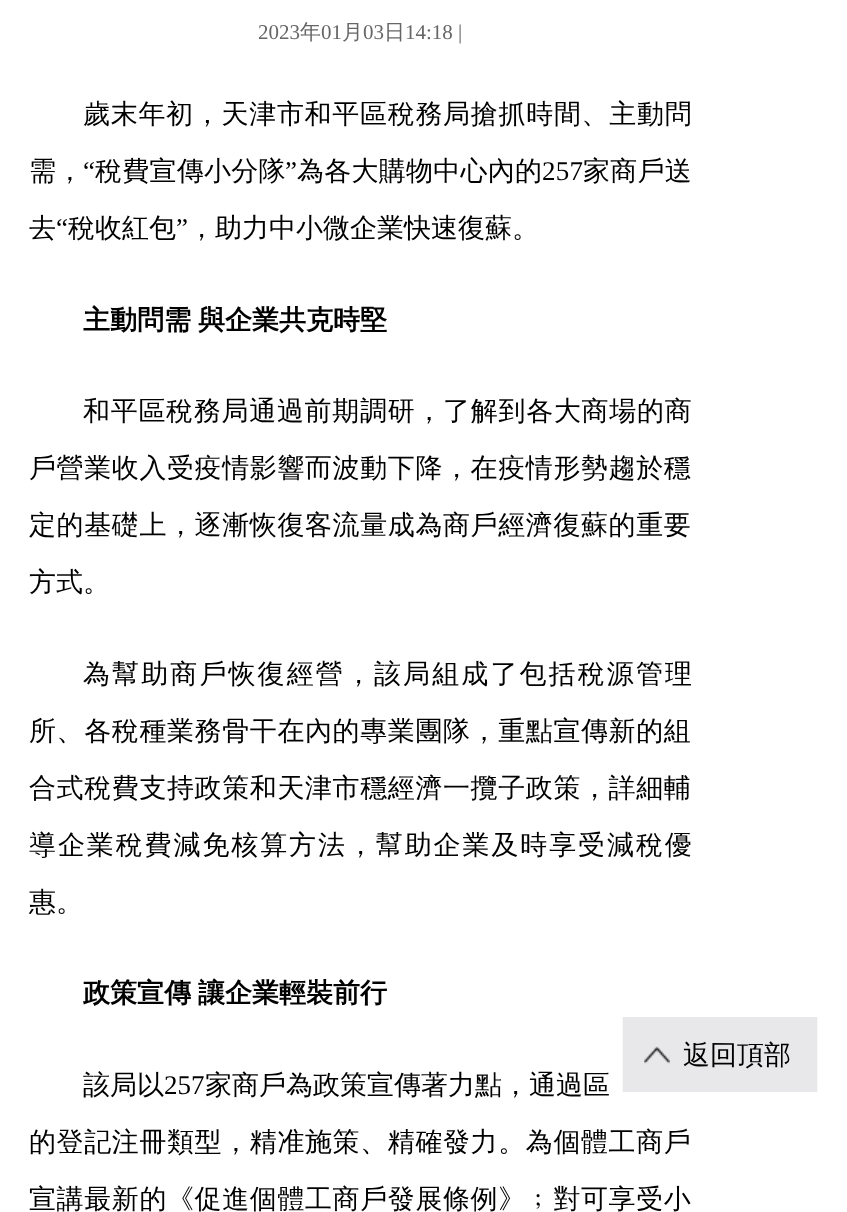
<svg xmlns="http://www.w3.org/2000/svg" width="847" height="1212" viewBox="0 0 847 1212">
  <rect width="100%" height="100%" fill="#fff"/>
  <image x="622" y="1017" width="196" height="75" href="img/1.png"/>
  <text x="258" y="39" font-family="Liberation Serif" font-size="21" fill="#666">2023</text>
  <text x="300" y="39" font-family="WenQuanYi Zen Hei" font-size="21" font-weight="500" fill="#666">年</text>
  <text x="321" y="39" font-family="Liberation Serif" font-size="21" fill="#666">01</text>
  <text x="342" y="39" font-family="WenQuanYi Zen Hei" font-size="21" font-weight="500" fill="#666">月</text>
  <text x="363" y="39" font-family="Liberation Serif" font-size="21" fill="#666">03</text>
  <text x="384" y="39" font-family="WenQuanYi Zen Hei" font-size="21" font-weight="500" fill="#666">日</text>
  <text x="405" y="39" font-family="Liberation Serif" font-size="21" fill="#666">14:18 |</text>
  <text x="83" y="123" font-family="WenQuanYi Zen Hei" font-size="27" font-weight="500" letter-spacing="0.7" fill="#000">歲末年初，天津市和平區稅務局搶抓時間、主動問</text>
  <text x="29" y="180" font-family="WenQuanYi Zen Hei" font-size="27" font-weight="500" letter-spacing="0.25" fill="#000">需，</text>
  <text x="83" y="180" font-family="Liberation Serif" font-size="27" letter-spacing="0.25" fill="#000">“</text>
  <text x="95" y="180" font-family="WenQuanYi Zen Hei" font-size="27" font-weight="500" letter-spacing="0.25" fill="#000">稅費宣傳小分隊</text>
  <text x="285" y="180" font-family="Liberation Serif" font-size="27" letter-spacing="0.25" fill="#000">”</text>
  <text x="297" y="180" font-family="WenQuanYi Zen Hei" font-size="27" font-weight="500" letter-spacing="0.25" fill="#000">為各大購物中心內的</text>
  <text x="542" y="180" font-family="Liberation Serif" font-size="27" letter-spacing="0.25" fill="#000">257</text>
  <text x="583" y="180" font-family="WenQuanYi Zen Hei" font-size="27" font-weight="500" letter-spacing="0.25" fill="#000">家商戶送</text>
  <text x="29" y="237" font-family="WenQuanYi Zen Hei" font-size="27" font-weight="500" fill="#000">去</text>
  <text x="56" y="237" font-family="Liberation Serif" font-size="27" fill="#000">“</text>
  <text x="68" y="237" font-family="WenQuanYi Zen Hei" font-size="27" font-weight="500" fill="#000">稅收紅包</text>
  <text x="176" y="237" font-family="Liberation Serif" font-size="27" fill="#000">”</text>
  <text x="188" y="237" font-family="WenQuanYi Zen Hei" font-size="27" font-weight="500" fill="#000">，助力中小微企業快速復蘇。</text>
  <text x="83" y="329" word-spacing="-1" font-family="WenQuanYi Zen Hei" font-size="27" font-weight="bold" fill="#000">主動問需 與企業共克時堅</text>
  <text x="83" y="420" font-family="WenQuanYi Zen Hei" font-size="27" font-weight="500" letter-spacing="0.7" fill="#000">和平區稅務局通過前期調研，了解到各大商場的商</text>
  <g font-family="WenQuanYi Zen Hei" font-size="27" font-weight="500" letter-spacing="0.6" fill="#000">
    <text x="29" y="477">戶營業收入受疫情影響而波動下降，在疫情形勢趨於穩</text>
    <text x="29" y="534">定的基礎上，逐漸恢復客流量成為商戶經濟復蘇的重要</text>
  </g>
  <text x="29" y="591" font-family="WenQuanYi Zen Hei" font-size="27" font-weight="500" fill="#000">方式。</text>
  <text x="83" y="683" font-family="WenQuanYi Zen Hei" font-size="27" font-weight="500" letter-spacing="2.1" fill="#000">為幫助商戶恢復經營，該局組成了包括稅源管理</text>
  <g font-family="WenQuanYi Zen Hei" font-size="27" font-weight="500" letter-spacing="0.6" fill="#000">
    <text x="29" y="740">所、各稅種業務骨干在內的專業團隊，重點宣傳新的組</text>
    <text x="29" y="797">合式稅費支持政策和天津市穩經濟一攬子政策，詳細輔</text>
  </g>
  <text x="29" y="854" font-family="WenQuanYi Zen Hei" font-size="27" font-weight="500" letter-spacing="1.9" fill="#000">導企業稅費減免核算方法，幫助企業及時享受減稅優</text>
  <text x="29" y="911" font-family="WenQuanYi Zen Hei" font-size="27" font-weight="500" fill="#000">惠。</text>
  <text x="83" y="1002" word-spacing="-1" font-family="WenQuanYi Zen Hei" font-size="27" font-weight="bold" fill="#000">政策宣傳 讓企業輕裝前行</text>
  <text x="83" y="1094" font-family="WenQuanYi Zen Hei" font-size="27" font-weight="500" fill="#000">該局以</text>
  <text x="164" y="1094" font-family="Liberation Serif" font-size="27" fill="#000">257</text>
  <text x="205" y="1094" font-family="WenQuanYi Zen Hei" font-size="27" font-weight="500" fill="#000">家商戶為政策宣傳著力點，通過區</text>
  <g font-family="WenQuanYi Zen Hei" font-size="27" font-weight="500" letter-spacing="0.6" fill="#000">
    <text x="29" y="1151">的登記注冊類型，精准施策、精確發力。為個體工商戶</text>
    <text x="29" y="1208">宣講最新的《促進個體工商戶發展條例》﹔對可享受小</text>
  </g>
  <text x="683" y="1064" font-family="WenQuanYi Zen Hei" font-size="27" font-weight="500" fill="#000">返回頂部</text>
</svg>
